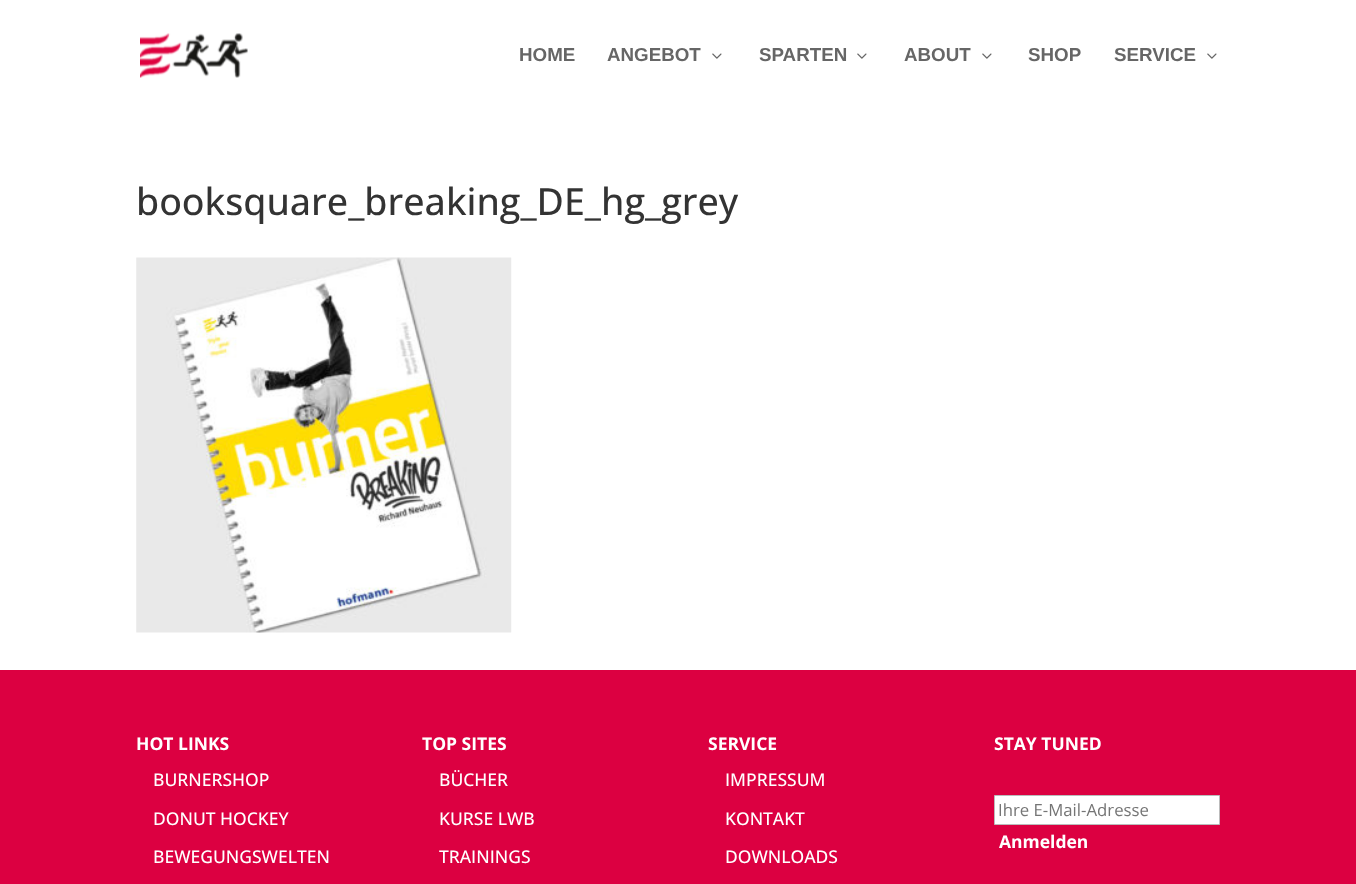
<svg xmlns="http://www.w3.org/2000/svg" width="1356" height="884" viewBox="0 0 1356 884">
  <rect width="100%" height="100%" fill="#fff"/>
  <image x="140" y="33" width="108" height="45" href="img/1.png"/>
  <image x="712" y="53" width="10" height="6" href="img/2.png"/>
  <image x="857" y="53" width="10" height="6" href="img/2.png"/>
  <image x="982" y="53" width="10" height="6" href="img/2.png"/>
  <image x="1207" y="53" width="10" height="6" href="img/2.png"/>
  <image x="136" y="257" width="376" height="376" href="img/3.png"/>
  <path d="M0 670h1356v214H0z" fill="#dc0041"/>
  <path d="M994.5 795.5h225v29H994.5z" fill="#fff" stroke="#bbb"/>
  <g font-family="Liberation Sans" font-size="18.75" font-weight="bold" fill="#666">
    <text x="519" y="61">HOME</text>
    <text x="607" y="61">ANGEBOT</text>
    <text x="759" y="61">SPARTEN</text>
    <text x="904" y="61">ABOUT</text>
    <text x="1028" y="61">SHOP</text>
    <text x="1114" y="61">SERVICE</text>
  </g>
  <text x="136" y="215" font-family="Open Sans" font-size="37.5" font-weight="500" fill="#333">booksquare_breaking_DE_hg_grey</text>
  <text x="136" y="750" font-family="Open Sans" font-size="17.5" font-weight="bold" fill="#fff">HOT LINKS</text>
  <g font-family="Open Sans" font-size="17.5" font-weight="500" fill="#fff">
    <text x="153" y="786">BURNERSHOP</text>
    <text x="153" y="825">DONUT HOCKEY</text>
    <text x="153" y="863">BEWEGUNGSWELTEN</text>
  </g>
  <text x="422" y="750" font-family="Open Sans" font-size="17.5" font-weight="bold" fill="#fff">TOP SITES</text>
  <g font-family="Open Sans" font-size="17.5" font-weight="500" fill="#fff">
    <text x="439" y="786">BÜCHER</text>
    <text x="439" y="825">KURSE LWB</text>
    <text x="439" y="863">TRAININGS</text>
  </g>
  <text x="708" y="750" font-family="Open Sans" font-size="17.5" font-weight="bold" fill="#fff">SERVICE</text>
  <g font-family="Open Sans" font-size="17.5" font-weight="500" fill="#fff">
    <text x="725" y="786">IMPRESSUM</text>
    <text x="725" y="825">KONTAKT</text>
    <text x="725" y="863">DOWNLOADS</text>
  </g>
  <text x="994" y="750" font-family="Open Sans" font-size="17.5" font-weight="bold" fill="#fff">STAY TUNED</text>
  <text x="998" y="816" font-family="Open Sans" font-size="16.75" fill="#757575">Ihre E-Mail-Adresse</text>
  <text x="999" y="848" font-family="Open Sans" font-size="17.5" font-weight="bold" fill="#fff">Anmelden</text>
</svg>
